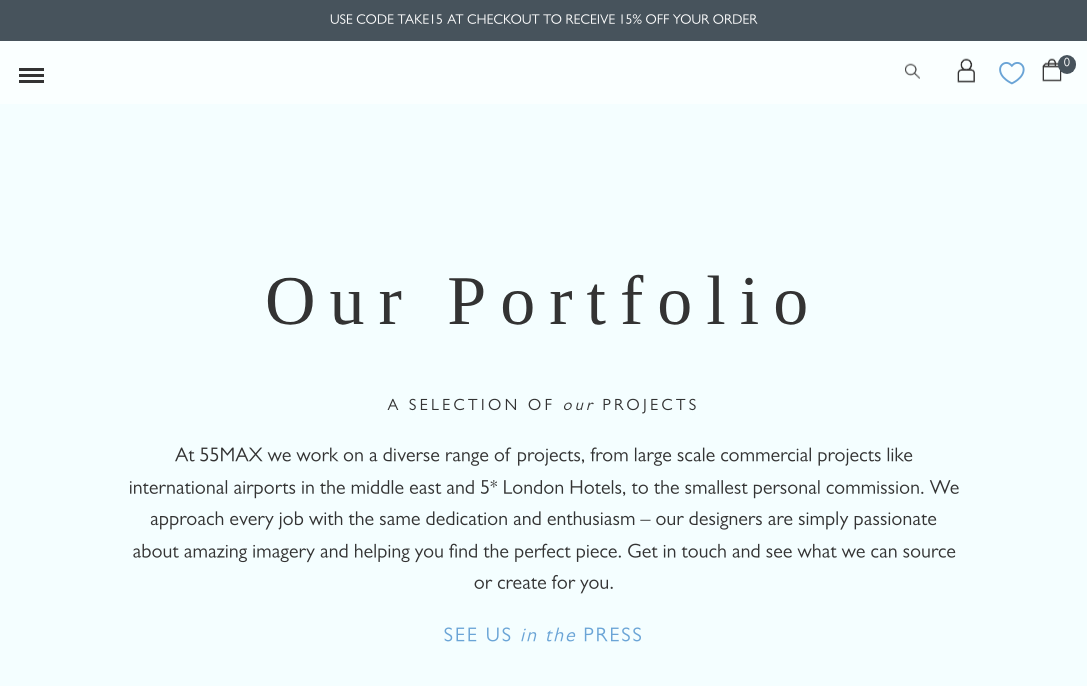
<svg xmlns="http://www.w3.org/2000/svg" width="1087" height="686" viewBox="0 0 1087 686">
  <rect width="100%" height="100%" fill="#f4feff"/>
  <path d="M0 0h1087v41H0z" fill="#47535c"/>
  <image x="330" y="14" width="64" height="10" href="img/1.png"/>
  <image x="397" y="14" width="45" height="10" href="img/2.png"/>
  <image x="447" y="14" width="311" height="10" href="img/3.png"/>
  <path d="M0 41h1087v63H0z" fill="#faffff"/>
  <path d="M19 68h25v3H19z" fill="#333"/>
  <path d="M19 80h25v3H19z" fill="#333"/>
  <path d="M19 74h25v3H19z" fill="#333"/>
  <image x="905" y="63" width="15" height="16" href="img/4.png"/>
  <image x="957" y="58" width="18" height="25" href="img/5.png"/>
  <image x="999" y="62" width="26" height="23" href="img/6.png"/>
  <image x="1042" y="58" width="20" height="24" href="img/7.png"/>
  <rect x="1058" y="55" width="18" height="19" rx="9" fill="#47535c"/>
  <image x="1064" y="57" width="6" height="10" href="img/8.png"/>
  <image x="387" y="398" width="165" height="13" href="img/9.png"/>
  <image x="564" y="402" width="30" height="9" href="img/10.png"/>
  <image x="603" y="398" width="93" height="16" href="img/11.png"/>
  <image x="175" y="447" width="738" height="19" href="img/12.png"/>
  <image x="129" y="480" width="830" height="19" href="img/13.png"/>
  <image x="150" y="511" width="787" height="19" href="img/14.png"/>
  <image x="133" y="543" width="823" height="20" href="img/15.png"/>
  <image x="474" y="574" width="139" height="20" href="img/16.png"/>
  <image x="444" y="627" width="67" height="15" href="img/17.png"/>
  <image x="521" y="627" width="55" height="15" href="img/18.png"/>
  <image x="584" y="627" width="57" height="15" href="img/19.png"/>
  <text x="265" y="324" font-family="Liberation Serif" font-size="70" letter-spacing="14" fill="#333">Our Portfolio</text>
</svg>
